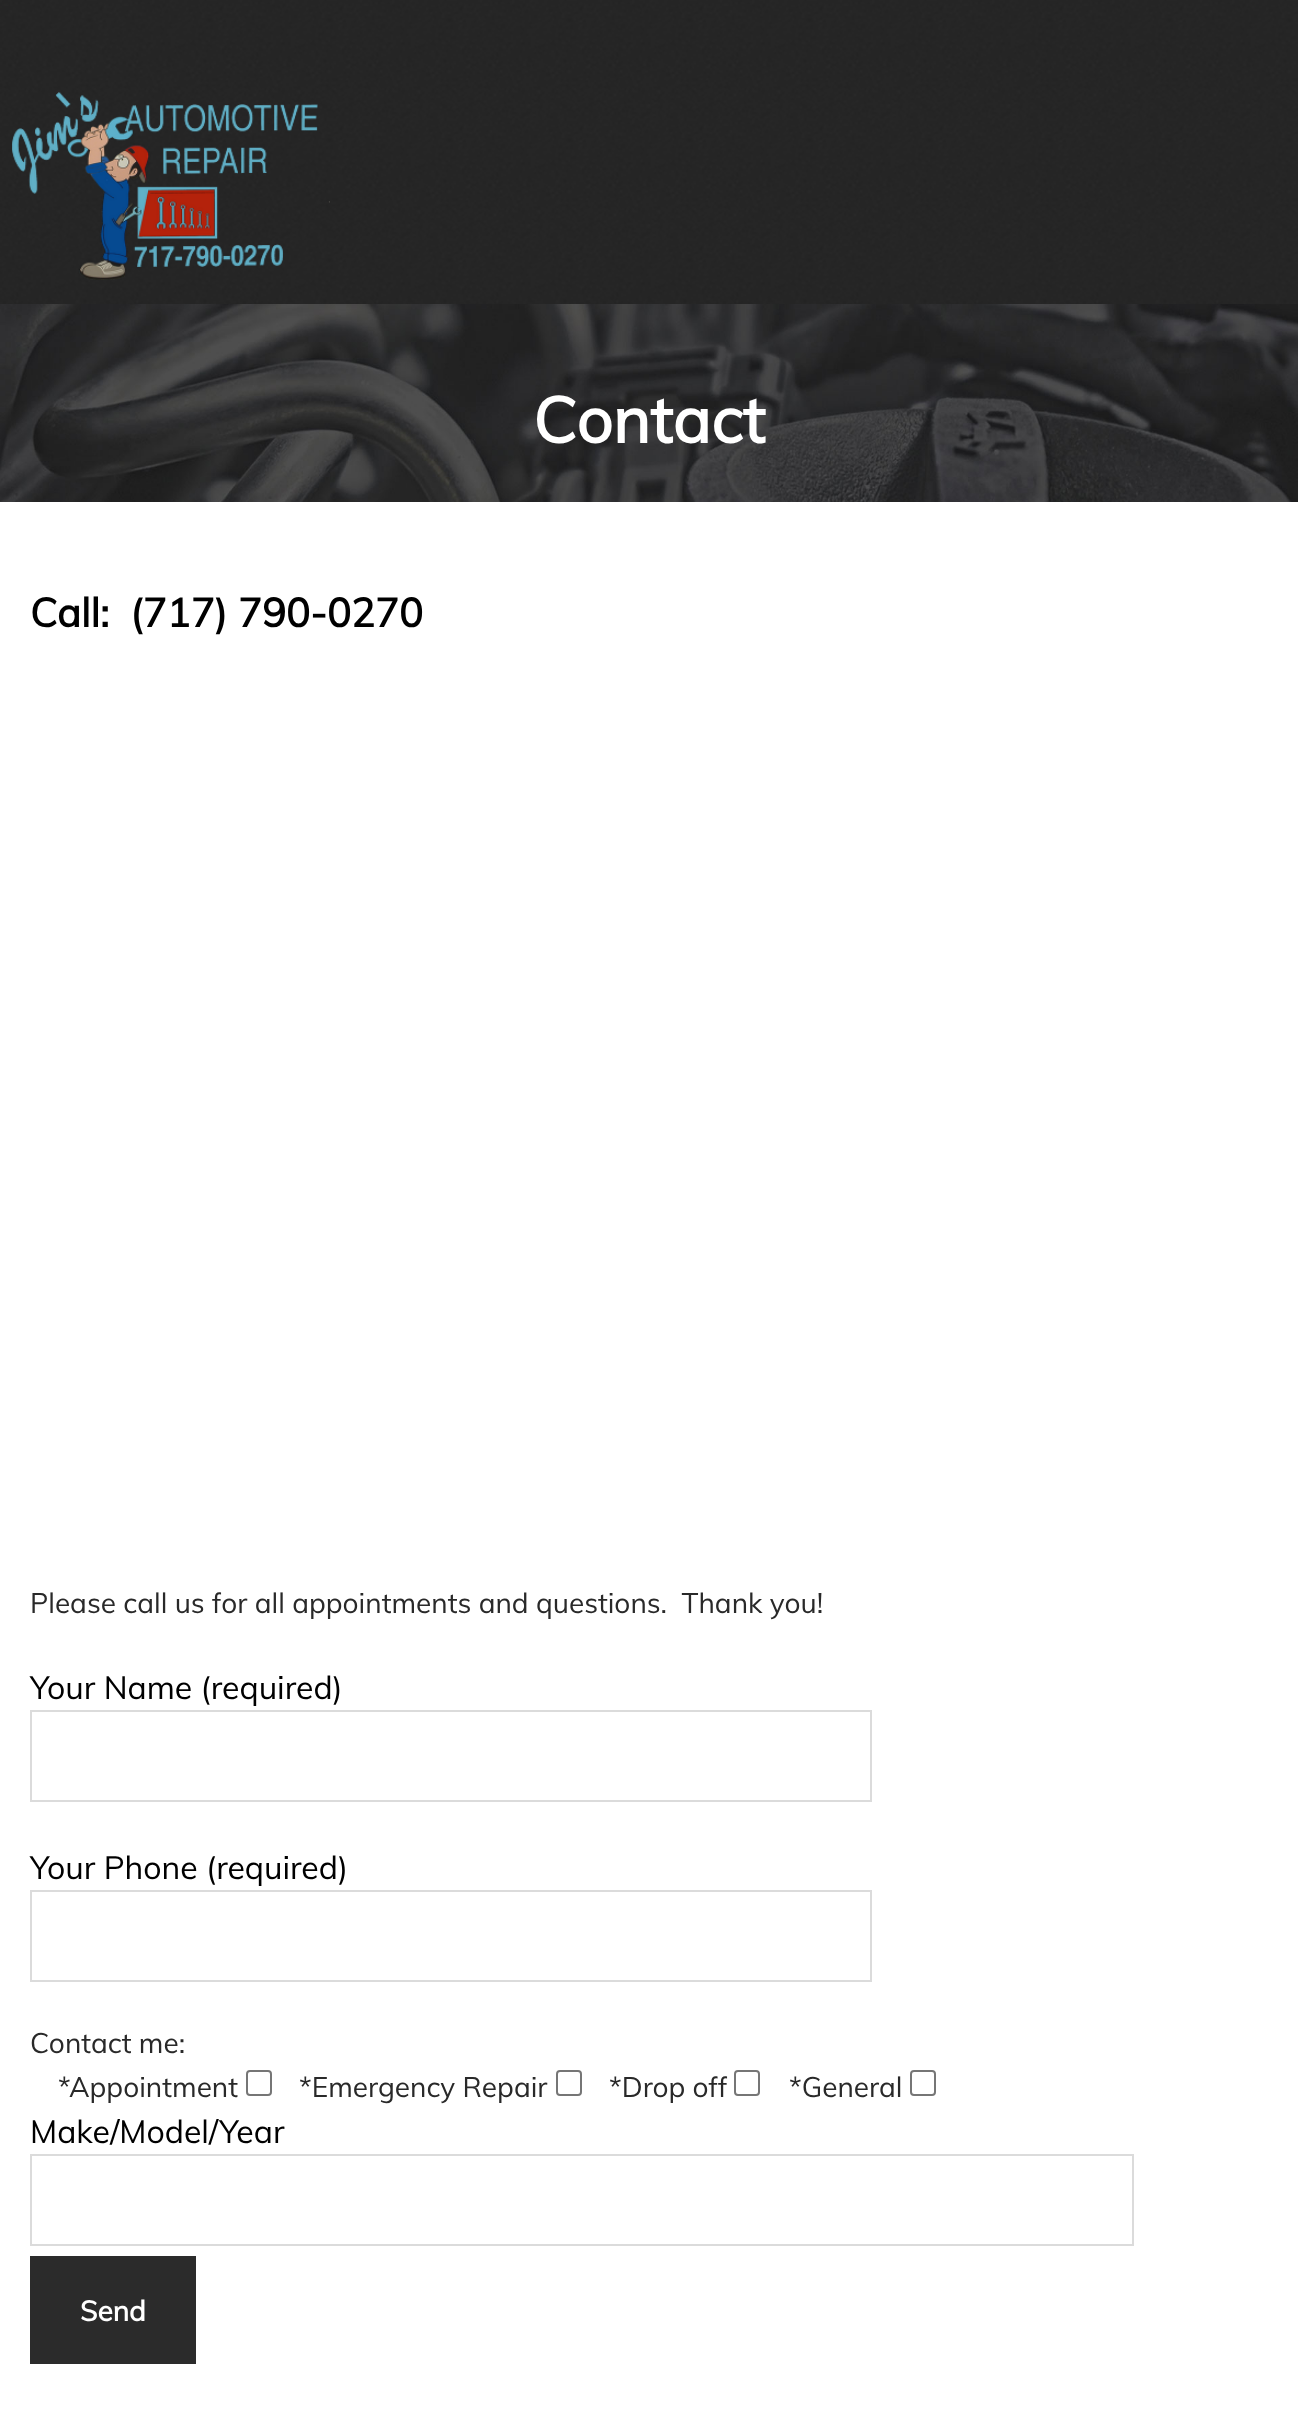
<svg xmlns="http://www.w3.org/2000/svg" width="1298" height="2427" viewBox="0 0 1298 2427">
  <rect width="100%" height="100%" fill="#fff"/>
  <image x="0" y="0" width="1298" height="304" href="img/1.png"/>
  <image x="12" y="92" width="318" height="188" href="img/2.png"/>
  <image x="0" y="304" width="1298" height="198" href="img/3.png"/>
  <path d="M31 1711h840v90H31z" fill="none" stroke="#dbdbdb" stroke-width="2"/>
  <path d="M31 1891h840v90H31z" fill="none" stroke="#dbdbdb" stroke-width="2"/>
  <rect x="247" y="2071" width="24" height="24" rx="3" fill="none" stroke="#767676" stroke-width="2"/>
  <rect x="557" y="2071" width="24" height="24" rx="3" fill="none" stroke="#767676" stroke-width="2"/>
  <rect x="735" y="2071" width="24" height="24" rx="3" fill="none" stroke="#767676" stroke-width="2"/>
  <rect x="911" y="2071" width="24" height="24" rx="3" fill="none" stroke="#767676" stroke-width="2"/>
  <path d="M31 2155h1102v90H31z" fill="none" stroke="#dbdbdb" stroke-width="2"/>
  <path d="M30 2256h166v108H30z" fill="#2b2b2b"/>
  <text x="533" y="443" font-family="Muli" font-size="64" font-weight="bold" fill="#fff">Contact</text>
  <text x="30" y="627" font-family="Muli" font-size="40" font-weight="bold" fill="#000" xml:space="preserve">Call:  (717) 790-0270</text>
  <text x="30" y="1613" font-family="Muli" font-size="28" fill="#292929" xml:space="preserve">Please call us for all appointments and questions.  Thank you!</text>
  <g font-family="Muli" font-size="32" fill="#000">
    <text x="30" y="1699">Your Name (required)</text>
    <text x="30" y="1879">Your Phone (required)</text>
  </g>
  <g font-family="Muli" font-size="28" fill="#292929">
    <text x="30" y="2053">Contact me:</text>
    <text x="58" y="2097">*Appointment</text>
    <text x="299" y="2097">*Emergency Repair</text>
    <text x="609" y="2097">*Drop off</text>
    <text x="789" y="2097">*General</text>
  </g>
  <text x="30" y="2143" font-family="Muli" font-size="32" fill="#000">Make/Model/Year</text>
  <text x="80" y="2321" font-family="Muli" font-size="28" font-weight="bold" fill="#fff">Send</text>
</svg>
